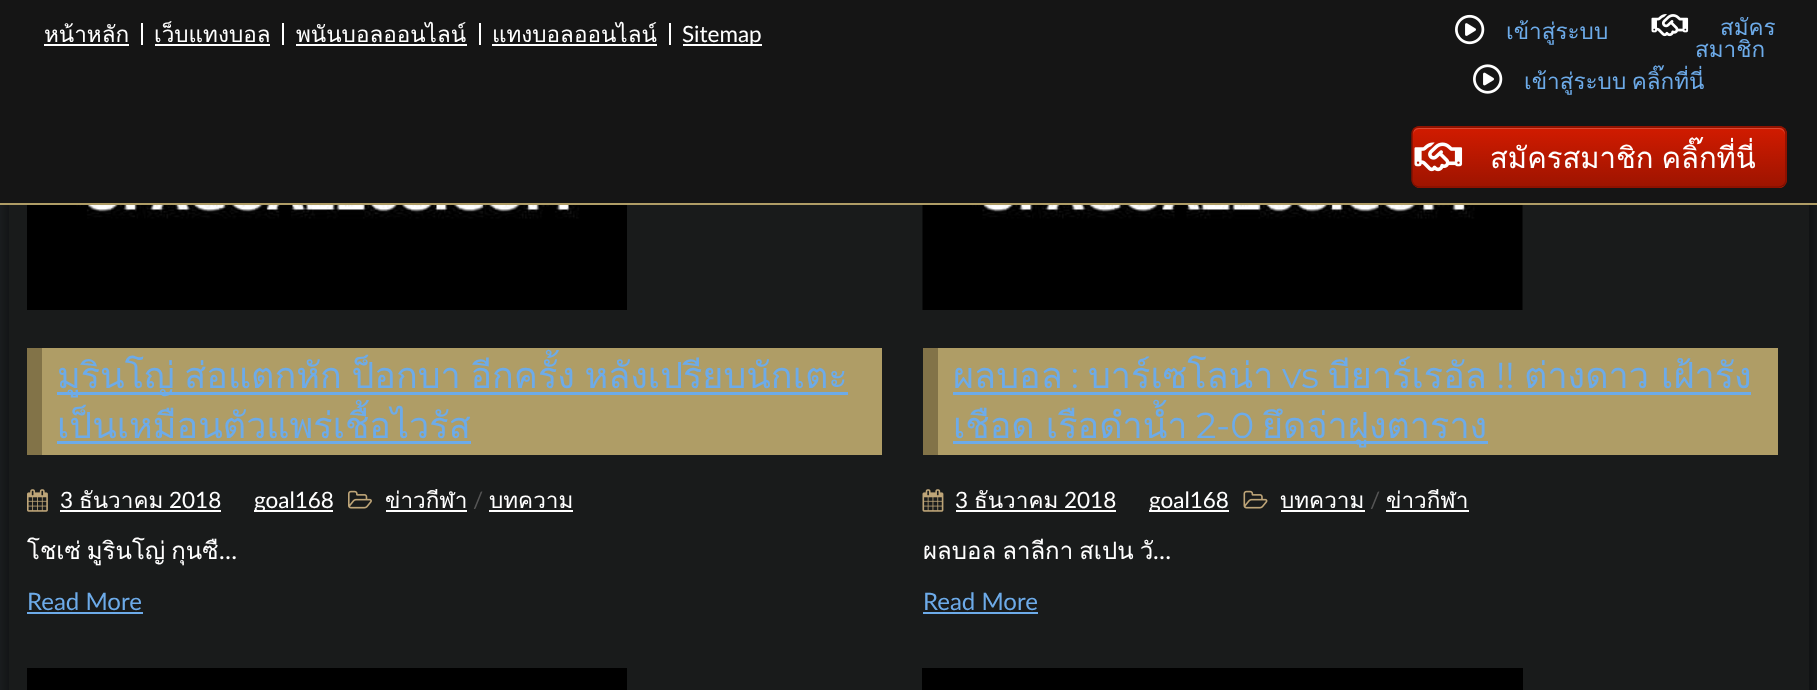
<svg xmlns="http://www.w3.org/2000/svg" width="1817" height="690" viewBox="0 0 1817 690">
  <defs>
    <clipPath id="clip1"><rect x="1412" y="126" width="375" height="62" rx="8"/></clipPath>
    <linearGradient id="g1" gradientUnits="userSpaceOnUse" x1="1413" y1="128" x2="1413" y2="69"><stop offset="0" stop-color="#9e1400"/><stop offset="1" stop-color="#d11b00"/></linearGradient>
    <linearGradient id="g2" gradientUnits="userSpaceOnUse" x1="1413" y1="186" x2="1413" y2="128"><stop offset="0" stop-color="#9e1400"/><stop offset="1" stop-color="#d11b00"/></linearGradient>
    <linearGradient id="g3" gradientUnits="userSpaceOnUse" x1="1413" y1="245" x2="1413" y2="186"><stop offset="0" stop-color="#9e1400"/><stop offset="1" stop-color="#d11b00"/></linearGradient>
  </defs>
  <rect width="100%" height="100%" fill="#1d2022"/>
  <path d="M6 -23h1809v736H6z" fill="#00000080" filter="blur(7.5px)"/>
  <path d="M0 0h1817v203H0z" fill="#151515"/>
  <path d="M0 203h1817v2H0z" fill="#af9d66"/>
  <path d="M141 23h2v22H141z" fill="#fff"/>
  <path d="M44 44h85v2H44z" fill="#fff"/>
  <path d="M282 23h2v22H282z" fill="#fff"/>
  <path d="M155 44h115v2H155z" fill="#fff"/>
  <path d="M479 23h2v22H479z" fill="#fff"/>
  <path d="M296 44h171v2H296z" fill="#fff"/>
  <path d="M669 23h2v22H669z" fill="#fff"/>
  <path d="M492 44h165v2H492z" fill="#fff"/>
  <path d="M683 44h79v2H683z" fill="#fff"/>
  <image x="1455" y="14" width="30" height="31" href="img/1.png"/>
  <image x="1651" y="14" width="38" height="23" href="img/2.png"/>
  <image x="1473" y="64" width="30" height="30" href="img/3.png"/>
  <g clip-path="url(#clip1)">
    <path d="M1412 126h375v2H1412z" fill="url(#g1)"/>
    <path d="M1412 128h375v58H1412z" fill="url(#g2)"/>
    <path d="M1412 186h375v2H1412z" fill="url(#g3)"/>
  </g>
  <path d="M1419 129H1779C1782 129 1785 132 1785 135C1785 131 1783 128 1779 128H1419C1415 128 1413 131 1413 135C1413 132 1416 129 1419 129Z" fill="#da4933"/>
  <path d="M1414 128.5C1415.5 127.5 1417 127 1419 127H1779C1781 127 1782.5 127.5 1784 128.5" fill="none" stroke="#8f1200" stroke-width="1.5"/>
  <path d="M1784 128.5C1785 130 1786 131.5 1786 133.5V180C1786 182 1785 183.5 1784 185" fill="none" stroke="#841100" stroke-width="1.5"/>
  <path d="M1784 185C1782.5 186 1781 187 1779 187H1419C1417 187 1415.5 186 1414 185" fill="none" stroke="#750f00" stroke-width="1.5"/>
  <path d="M1414 185C1413 183.5 1412 182 1412 180V133.5C1412 131.5 1413 130 1414 128.5" fill="none" stroke="#841100" stroke-width="1.5"/>
  <image x="1414" y="142" width="49" height="30" href="img/4.png"/>
  <path d="M9 205h1800v485H9z" fill="#191b1b"/>
  <image x="27" y="205" width="600" height="105" href="img/5.png"/>
  <path d="M42 348h840v107H42z" fill="#af9d66"/>
  <path d="M27 348h15v107H27z" fill="#827348"/>
  <path d="M57 392h791v3H57z" fill="#6dabe9"/>
  <path d="M57 441h414v3H57z" fill="#6dabe9"/>
  <image x="27" y="489" width="21" height="23" href="img/6.png"/>
  <path d="M60 510h161v2H60z" fill="#fff"/>
  <path d="M254 510h79v2H254z" fill="#fff"/>
  <image x="348" y="490" width="24" height="19" href="img/7.png"/>
  <path d="M386 510h81v2H386z" fill="#fff"/>
  <path d="M489 510h84v2H489z" fill="#fff"/>
  <path d="M27 612h116v2H27z" fill="#6dabe9"/>
  <image x="922" y="205" width="601" height="105" href="img/8.png"/>
  <path d="M938 348h840v107H938z" fill="#af9d66"/>
  <path d="M923 348h15v107H923z" fill="#827348"/>
  <path d="M953 392h798v3H953z" fill="#6dabe9"/>
  <path d="M953 441h535v3H953z" fill="#6dabe9"/>
  <image x="922" y="489" width="22" height="23" href="img/9.png"/>
  <path d="M956 510h160v2H956z" fill="#fff"/>
  <path d="M1149 510h80v2H1149z" fill="#fff"/>
  <image x="1243" y="490" width="25" height="19" href="img/10.png"/>
  <path d="M1281 510h84v2H1281z" fill="#fff"/>
  <path d="M1386 510h83v2H1386z" fill="#fff"/>
  <path d="M923 612h115v2H923z" fill="#6dabe9"/>
  <path d="M27 668h600v22H27z" fill="#000"/>
  <path d="M922 668h601v22H922z" fill="#000"/>
  <g font-family="Loma" font-size="22.5" fill="#fff">
    <text x="44" y="42">หน้าหลัก</text>
    <text x="154" y="42">เว็บแทงบอล</text>
    <text x="296" y="42">พนันบอลออนไลน์</text>
    <text x="492" y="42">แทงบอลออนไลน์</text>
  </g>
  <text x="682" y="42" font-family="Lato" font-size="22.5" fill="#fff">Sitemap</text>
  <g font-family="Loma" font-size="22.5" fill="#6dabe9">
    <text x="1506" y="39">เข้าสู่ระบบ</text>
    <text x="1720" y="35">สมัคร</text>
    <text x="1695" y="57">สมาชิก</text>
    <text x="1524" y="89" word-spacing="-2">เข้าสู่ระบบ คลิ๊กที่นี่</text>
  </g>
  <text x="1490" y="168" word-spacing="-2" font-family="Loma" font-size="29.25" fill="#fff">สมัครสมาชิก คลิ๊กที่นี่</text>
  <g font-family="Loma" font-size="36" fill="#6dabe9">
    <text x="57" y="388" word-spacing="-2.5">มูรินโญ่ ส่อแตกหัก ป็อกบา อีกครั้ง หลังเปรียบนักเตะ</text>
    <text x="57" y="438">เป็นเหมือนตัวแพร่เชื้อไวรัส</text>
  </g>
  <text x="60" y="508" font-family="Lato" font-size="22.5" fill="#fff">3</text>
  <text x="79" y="508" font-family="Loma" font-size="22.5" fill="#fff">ธันวาคม</text>
  <g font-family="Lato" font-size="22.5" fill="#fff">
    <text x="169" y="508">2018</text>
    <text x="254" y="508">goal168</text>
  </g>
  <text x="385" y="508" font-family="Loma" font-size="22.5" fill="#fff">ข่าวกีฬา</text>
  <text x="473" y="508" font-family="Lato" font-size="22.5" fill="#555">/</text>
  <text x="489" y="508" font-family="Loma" font-size="22.5" fill="#fff">บทความ</text>
  <text x="27" y="559" word-spacing="-2" font-family="Loma" font-size="24" fill="#fff">โชเซ่ มูรินโญ่ กุนซื</text>
  <text x="219" y="559" font-family="Lato" font-size="24" fill="#fff">…</text>
  <text x="27" y="610" font-family="Lato" font-size="24" fill="#6dabe9">Read More</text>
  <text x="953" y="388" font-family="Loma" font-size="36" fill="#6dabe9">ผลบอล</text>
  <text x="1071" y="388" font-family="Montserrat" font-size="36" fill="#6dabe9">:</text>
  <text x="1088" y="388" font-family="Loma" font-size="36" fill="#6dabe9">บาร์เซโลน่า</text>
  <text x="1282" y="388" font-family="Montserrat" font-size="36" fill="#6dabe9">vs</text>
  <text x="1328" y="388" font-family="Loma" font-size="36" fill="#6dabe9">บียาร์เรอัล</text>
  <text x="1496" y="388" font-family="Montserrat" font-size="36" fill="#6dabe9">!!</text>
  <g font-family="Loma" font-size="36" fill="#6dabe9">
    <text x="1524" y="388">ต่างดาว เฝ้ารัง</text>
    <text x="953" y="438" word-spacing="-1">เชือด เรือดำน้ำ</text>
  </g>
  <text x="1196" y="438" font-family="Montserrat" font-size="36" fill="#6dabe9">2-0</text>
  <text x="1262" y="438" font-family="Loma" font-size="36" fill="#6dabe9">ยึดจ่าฝูงตาราง</text>
  <text x="955" y="508" font-family="Lato" font-size="22.5" fill="#fff">3</text>
  <text x="974" y="508" font-family="Loma" font-size="22.5" fill="#fff">ธันวาคม</text>
  <g font-family="Lato" font-size="22.5" fill="#fff">
    <text x="1064" y="508">2018</text>
    <text x="1149" y="508">goal168</text>
  </g>
  <text x="1280" y="508" font-family="Loma" font-size="22.5" fill="#fff">บทความ</text>
  <text x="1370" y="508" font-family="Lato" font-size="22.5" fill="#555">/</text>
  <text x="1386" y="508" font-family="Loma" font-size="22.5" fill="#fff">ข่าวกีฬา</text>
  <text x="923" y="559" word-spacing="-2" font-family="Loma" font-size="24" fill="#fff">ผลบอล ลาลีกา สเปน วั</text>
  <text x="1153" y="559" font-family="Lato" font-size="24" fill="#fff">…</text>
  <text x="923" y="610" font-family="Lato" font-size="24" fill="#6dabe9">Read More</text>
</svg>
